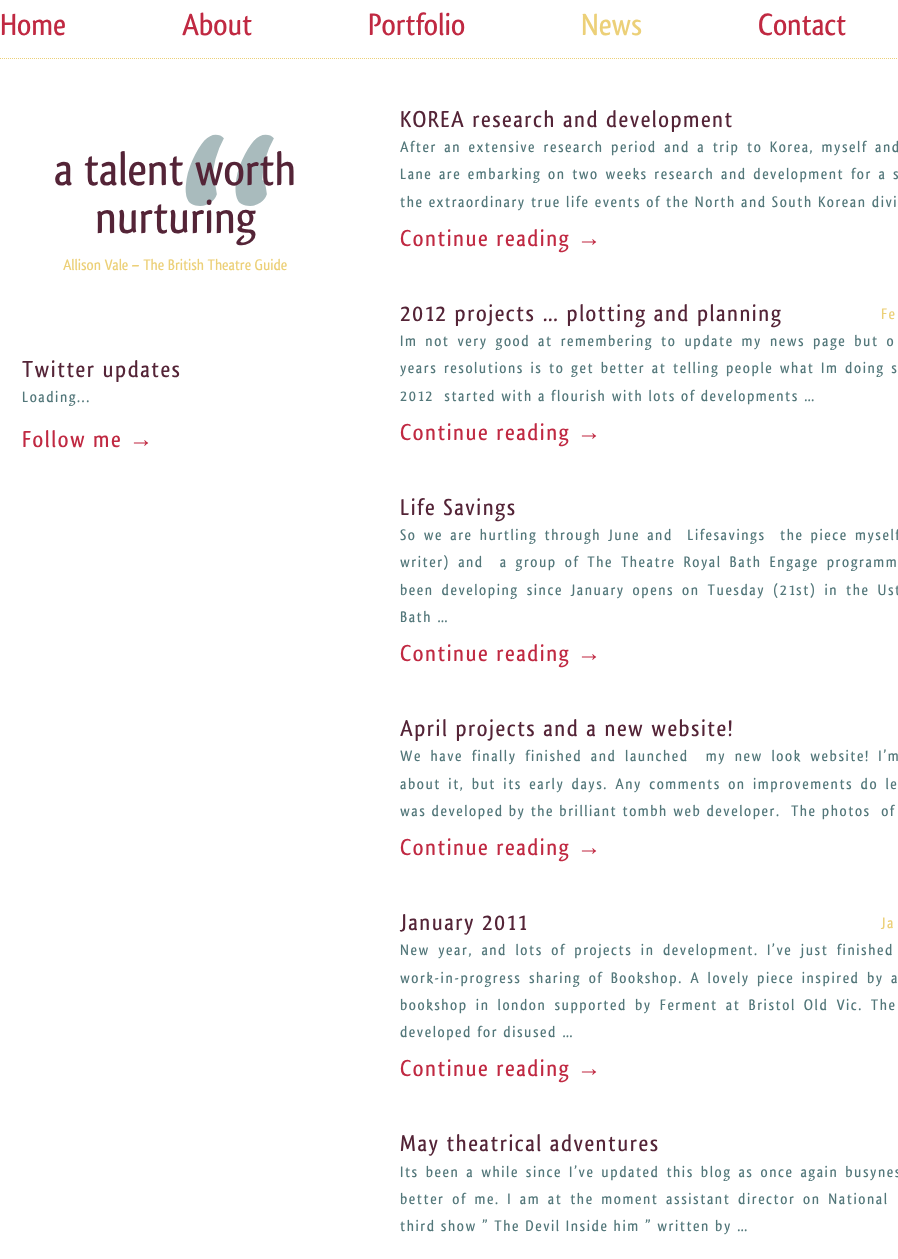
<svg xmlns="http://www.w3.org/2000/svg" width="898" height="1259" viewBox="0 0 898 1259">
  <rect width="100%" height="100%" fill="#fff"/>
  <path d="M0 58.5H898" fill="none" stroke="#ecd078" stroke-dasharray="1 1"/>
  <g font-family="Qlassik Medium" font-size="32" font-weight="500" fill="#c02942">
    <text x="0" y="35">Home</text>
    <text x="182" y="35">About</text>
    <text x="368" y="35">Portfolio</text>
  </g>
  <text x="581" y="35" font-family="Qlassik Medium" font-size="32" font-weight="500" fill="#ecd078">News</text>
  <text x="758" y="35" font-family="Qlassik Medium" font-size="32" font-weight="500" fill="#c02942">Contact</text>
  <text x="175" y="369" font-family="Qlassik Medium" font-size="320" font-weight="500" fill="#a9bbbd">“</text>
  <g font-family="Qlassik Medium" font-size="48" font-weight="500" fill="#542437">
    <text x="54" y="185">a talent worth</text>
    <text x="95" y="233">nurturing</text>
  </g>
  <text x="63" y="270" font-family="Qlassik Medium" font-size="16" font-weight="500" fill="#ecd078">Allison Vale – The British Theatre Guide</text>
  <text x="400" y="127" font-family="Qlassik Medium" font-size="24" font-weight="500" letter-spacing="1.6" fill="#542437">KOREA research and development</text>
  <g font-family="Qlassik Medium" font-size="16" font-weight="500" letter-spacing="1.6" fill="#53777a">
    <text x="400" y="152" word-spacing="2.25">After an extensive research period and a trip to Korea, myself and</text>
    <text x="400" y="179" word-spacing="1.4">Lane are embarking on two weeks research and development for a s</text>
    <text x="400" y="207">the extraordinary true life events of the North and South Korean divi</text>
  </g>
  <text x="400" y="246" font-family="Qlassik Medium" font-size="24" font-weight="500" letter-spacing="1.6" fill="#c02942">Continue reading</text>
  <text x="577" y="246" font-family="Liberation Sans" font-size="24" letter-spacing="1.6" fill="#c02942">→</text>
  <text x="400" y="321" font-family="Qlassik Medium" font-size="24" font-weight="500" letter-spacing="1.6" fill="#542437">2012 projects … plotting and planning</text>
  <text x="881" y="319" font-family="Qlassik Medium" font-size="16" font-weight="500" letter-spacing="1.6" fill="#ecd078">Fe</text>
  <g font-family="Qlassik Medium" font-size="16" font-weight="500" letter-spacing="1.6" fill="#53777a">
    <text x="400" y="346" word-spacing="2.75">Im not very good at remembering to update my news page but o</text>
    <text x="400" y="373" word-spacing="1.4">years resolutions is to get better at telling people what Im doing s</text>
    <text x="400" y="401" xml:space="preserve">2012  started with a flourish with lots of developments …</text>
  </g>
  <text x="400" y="440" font-family="Qlassik Medium" font-size="24" font-weight="500" letter-spacing="1.6" fill="#c02942">Continue reading</text>
  <text x="577" y="440" font-family="Liberation Sans" font-size="24" letter-spacing="1.6" fill="#c02942">→</text>
  <text x="400" y="515" font-family="Qlassik Medium" font-size="24" font-weight="500" letter-spacing="1.6" fill="#542437">Life Savings</text>
  <g font-family="Qlassik Medium" font-size="16" font-weight="500" letter-spacing="1.6" fill="#53777a">
    <text x="400" y="540" word-spacing="2" xml:space="preserve">So we are hurtling through June and  Lifesavings  the piece myself</text>
    <text x="400" y="567" word-spacing="2.75" xml:space="preserve">writer) and  a group of The Theatre Royal Bath Engage programm</text>
    <text x="400" y="595" word-spacing="2.75">been developing since January opens on Tuesday (21st) in the Ust</text>
    <text x="400" y="622">Bath …</text>
  </g>
  <text x="400" y="661" font-family="Qlassik Medium" font-size="24" font-weight="500" letter-spacing="1.6" fill="#c02942">Continue reading</text>
  <text x="577" y="661" font-family="Liberation Sans" font-size="24" letter-spacing="1.6" fill="#c02942">→</text>
  <text x="400" y="736" font-family="Qlassik Medium" font-size="24" font-weight="500" letter-spacing="1.6" fill="#542437">April projects and a new website!</text>
  <g font-family="Qlassik Medium" font-size="16" font-weight="500" letter-spacing="1.6" fill="#53777a">
    <text x="400" y="761" word-spacing="3.4" xml:space="preserve">We have finally finished and launched  my new look website! I’m</text>
    <text x="400" y="789" word-spacing="2.1">about it, but its early days. Any comments on improvements do le</text>
    <text x="400" y="816" xml:space="preserve">was developed by the brilliant tombh web developer.  The photos  of</text>
  </g>
  <text x="400" y="855" font-family="Qlassik Medium" font-size="24" font-weight="500" letter-spacing="1.6" fill="#c02942">Continue reading</text>
  <text x="577" y="855" font-family="Liberation Sans" font-size="24" letter-spacing="1.6" fill="#c02942">→</text>
  <text x="400" y="930" font-family="Qlassik Medium" font-size="24" font-weight="500" letter-spacing="1.6" fill="#542437">January 2011</text>
  <text x="881" y="928" font-family="Qlassik Medium" font-size="16" font-weight="500" letter-spacing="1.6" fill="#ecd078">Ja</text>
  <g font-family="Qlassik Medium" font-size="16" font-weight="500" letter-spacing="1.6" fill="#53777a">
    <text x="400" y="955" word-spacing="3.25">New year, and lots of projects in development. I’ve just finished</text>
    <text x="400" y="983" word-spacing="2.25">work-in-progress sharing of Bookshop. A lovely piece inspired by a</text>
    <text x="400" y="1010" word-spacing="2.9">bookshop in london supported by Ferment at Bristol Old Vic. The</text>
    <text x="400" y="1037">developed for disused …</text>
  </g>
  <text x="400" y="1076" font-family="Qlassik Medium" font-size="24" font-weight="500" letter-spacing="1.6" fill="#c02942">Continue reading</text>
  <text x="577" y="1076" font-family="Liberation Sans" font-size="24" letter-spacing="1.6" fill="#c02942">→</text>
  <text x="400" y="1151" font-family="Qlassik Medium" font-size="24" font-weight="500" letter-spacing="1.6" fill="#542437">May theatrical adventures</text>
  <g font-family="Qlassik Medium" font-size="16" font-weight="500" letter-spacing="1.6" fill="#53777a">
    <text x="400" y="1177" word-spacing="1.75">Its been a while since I’ve updated this blog as once again busynes</text>
    <text x="400" y="1204" word-spacing="2.5">better of me. I am at the moment assistant director on National</text>
    <text x="400" y="1231">third show ” The Devil Inside him ” written by …</text>
  </g>
  <text x="22" y="377" font-family="Qlassik Medium" font-size="24" font-weight="500" letter-spacing="1.6" fill="#542437">Twitter updates</text>
  <text x="22" y="402" font-family="Qlassik Medium" font-size="16" font-weight="500" letter-spacing="1.6" fill="#53777a">Loading...</text>
  <text x="22" y="447" font-family="Qlassik Medium" font-size="24" font-weight="500" letter-spacing="1.6" fill="#c02942">Follow me</text>
  <text x="129" y="447" font-family="Liberation Sans" font-size="24" letter-spacing="1.6" fill="#c02942">→</text>
</svg>
